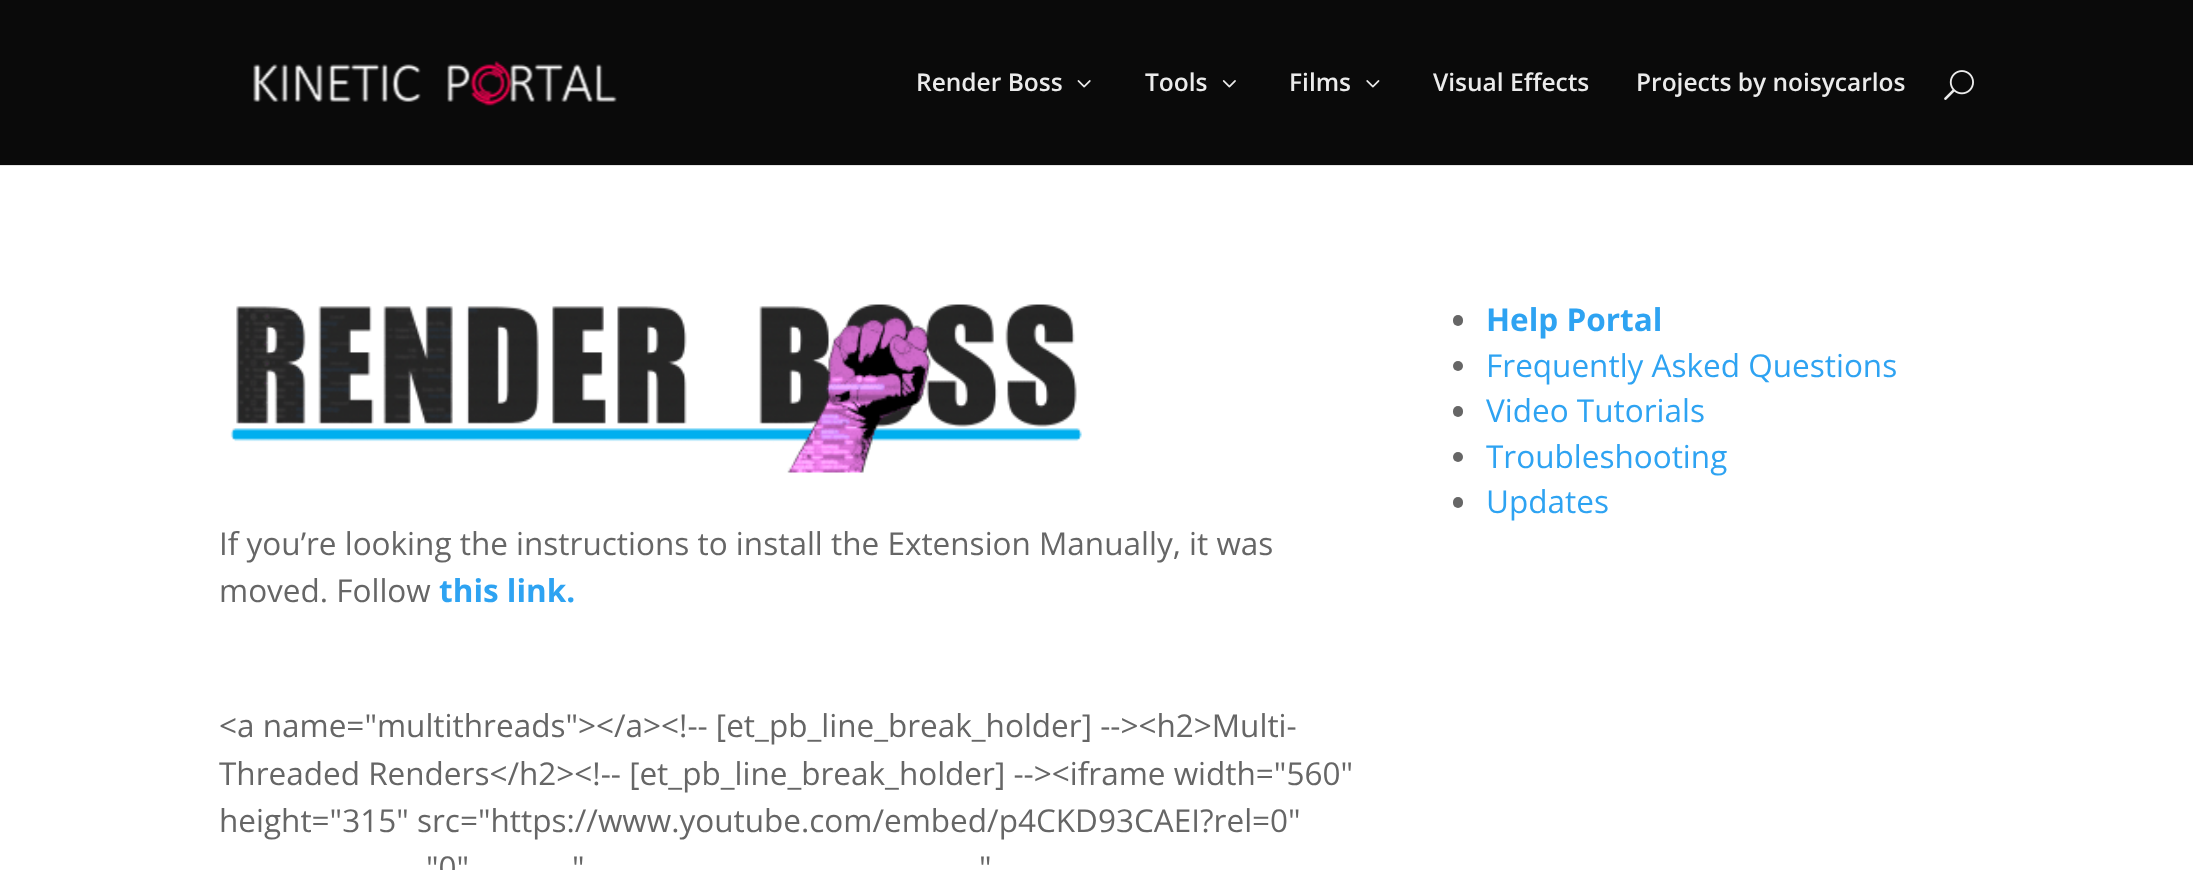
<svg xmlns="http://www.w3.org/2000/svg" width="2193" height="870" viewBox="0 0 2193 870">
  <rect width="100%" height="100%" fill="#fff"/>
  <path d="M0 164V166H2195V2H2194V164Z" fill="#0000001a"/>
  <path d="M0 0h2193v165H0z" fill="#0a0a0a"/>
  <image x="253" y="61" width="364" height="45" href="img/1.png"/>
  <image x="1077" y="80" width="14" height="8" href="img/2.png"/>
  <image x="1222" y="80" width="14" height="8" href="img/3.png"/>
  <image x="1366" y="80" width="14" height="8" href="img/4.png"/>
  <image x="1944" y="70" width="30" height="30" href="img/5.png"/>
  <rect x="1453" y="315" width="10" height="11" rx="5" fill="#666"/>
  <circle cx="1458" cy="366" r="5" fill="#666"/>
  <rect x="1453" y="406" width="10" height="11" rx="5" fill="#666"/>
  <circle cx="1458" cy="457" r="5" fill="#666"/>
  <rect x="1453" y="497" width="10" height="11" rx="5" fill="#666"/>
  <image x="230" y="304" width="852" height="169" href="img/6.png"/>
  <g font-family="Open Sans" font-size="24.5" font-weight="600" fill="#ebebeb">
    <text x="916" y="91">Render Boss</text>
    <text x="1145" y="91">Tools</text>
    <text x="1289" y="91">Films</text>
    <text x="1433" y="91">Visual Effects</text>
    <text x="1636" y="91">Projects by noisycarlos</text>
  </g>
  <text x="1486" y="331" font-family="Open Sans" font-size="31.5" font-weight="bold" fill="#2ea3f2">Help Portal</text>
  <g font-family="Open Sans" font-size="31.5" fill="#2ea3f2">
    <text x="1486" y="377">Frequently Asked Questions</text>
    <text x="1486" y="422">Video Tutorials</text>
    <text x="1486" y="468">Troubleshooting</text>
    <text x="1486" y="513">Updates</text>
  </g>
  <g font-family="Open Sans" font-size="31.5" fill="#666">
    <text x="219" y="555">If you’re looking the instructions to install the Extension Manually, it was</text>
    <text x="219" y="602">moved. Follow</text>
  </g>
  <text x="439" y="602" font-family="Open Sans" font-size="31.5" font-weight="bold" fill="#2ea3f2">this link.</text>
  <g font-family="Open Sans" font-size="31.5" fill="#666">
    <text x="219" y="737">&lt;a name="multithreads"&gt;&lt;/a&gt;&lt;!-- [et_pb_line_break_holder] --&gt;&lt;h2&gt;Multi-</text>
    <text x="219" y="785">Threaded Renders&lt;/h2&gt;&lt;!-- [et_pb_line_break_holder] --&gt;&lt;iframe width="560"</text>
    <text x="219" y="832">height="315" src="https://www.youtube.com/embed/p4CKD93CAEI?rel=0"</text>
    <text x="426" y="879">"0"</text>
    <text x="572" y="879">"</text>
    <text x="979" y="879">"</text>
  </g>
</svg>
